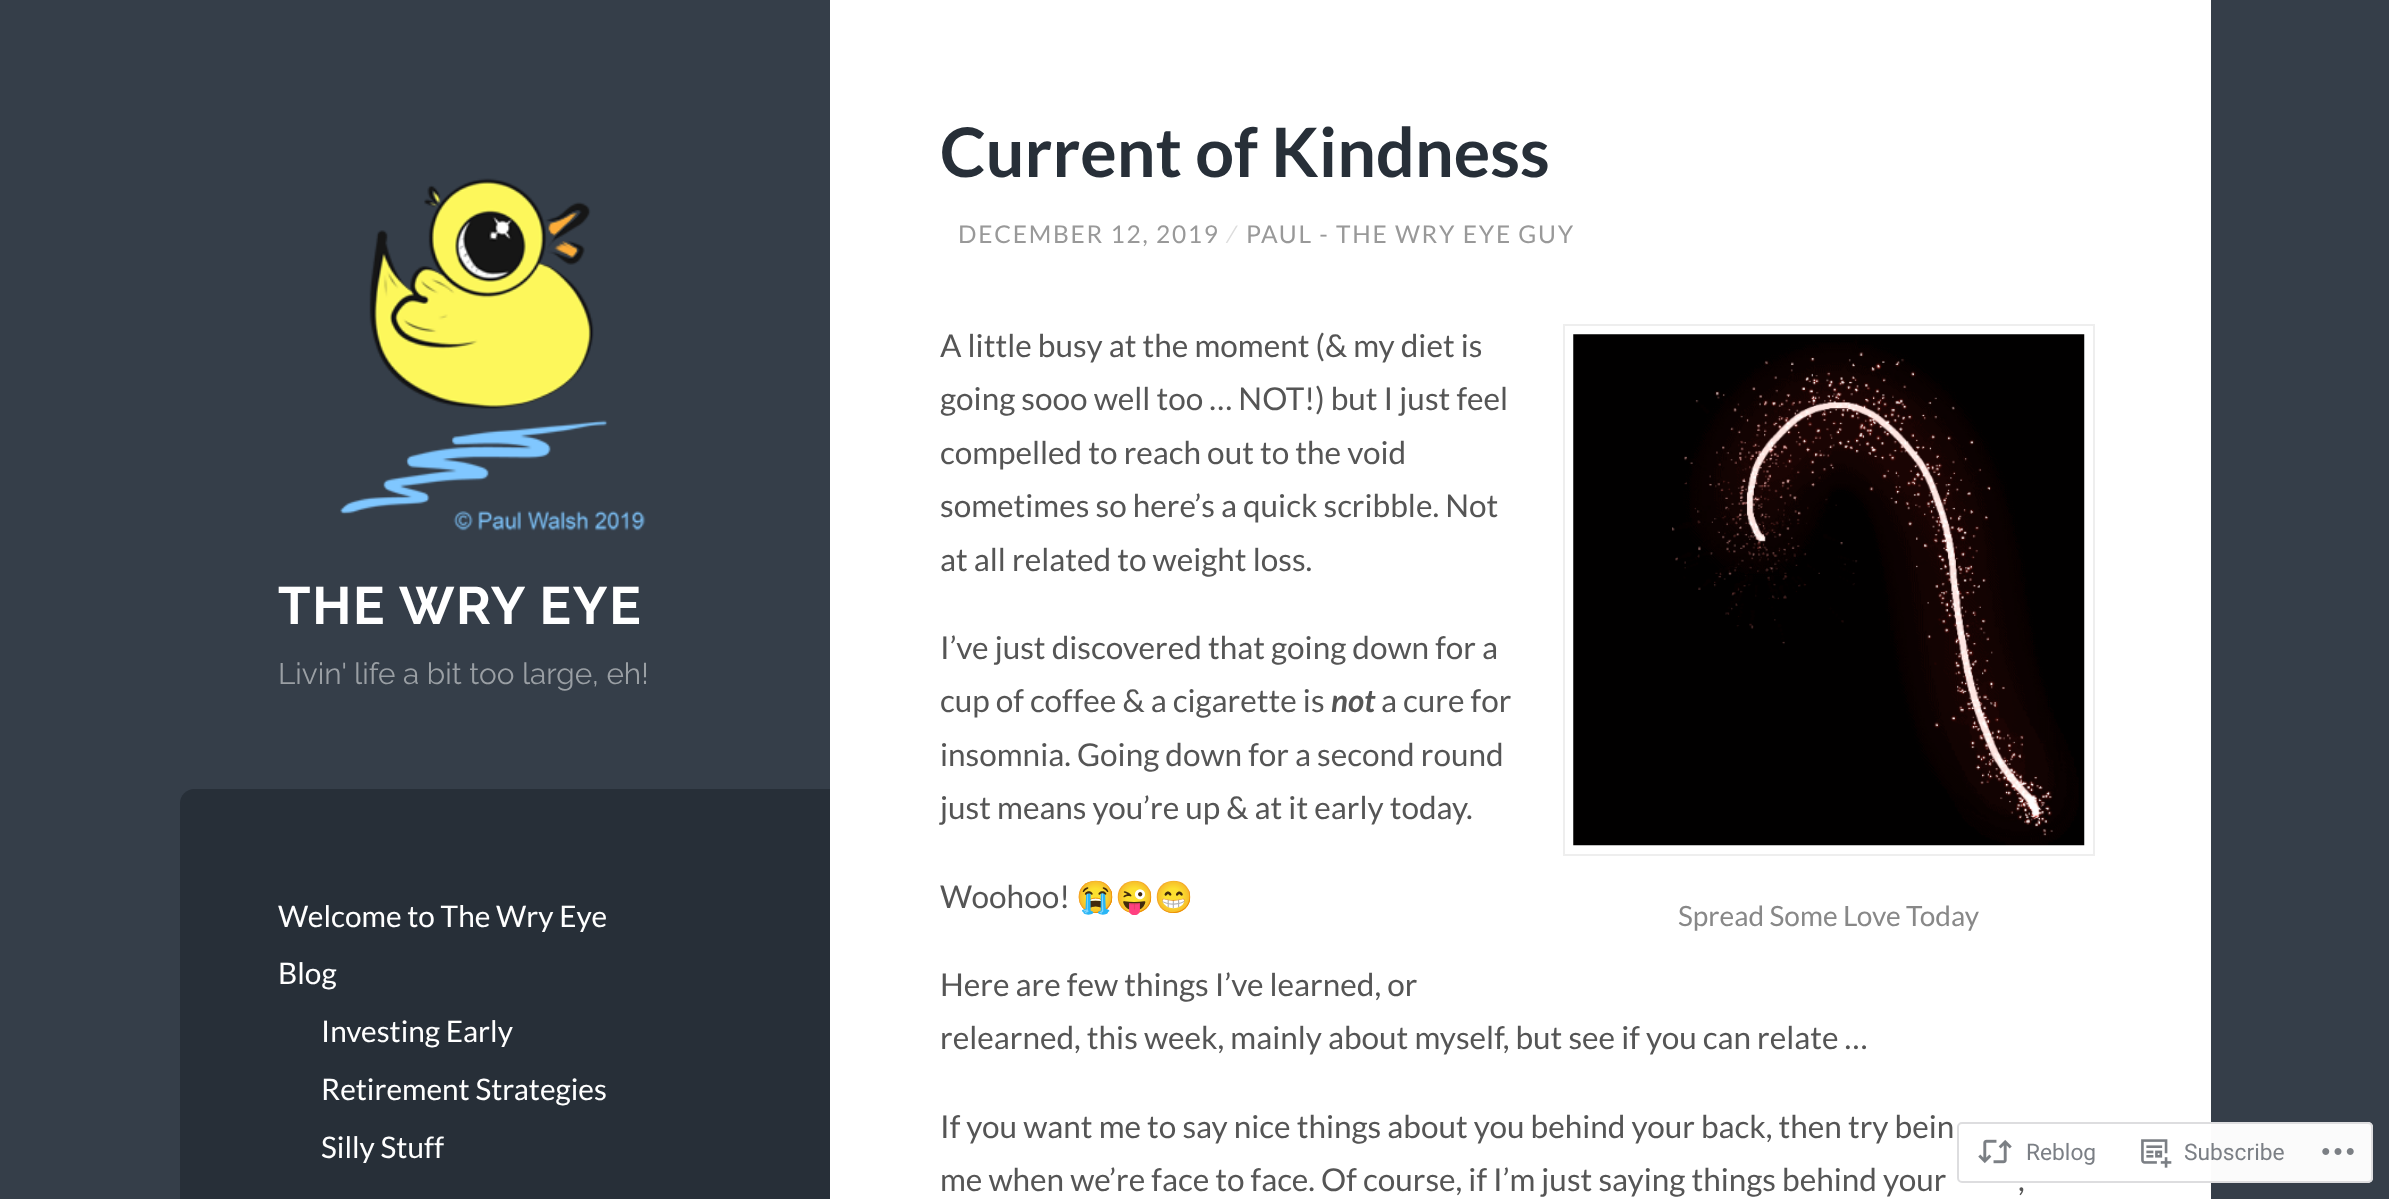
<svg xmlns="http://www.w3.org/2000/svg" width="2389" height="1199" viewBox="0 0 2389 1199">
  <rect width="100%" height="100%" fill="#353e49"/>
  <path d="M830 0h1381v1199H830z" fill="#fff"/>
  <image x="340" y="178" width="306" height="353" href="img/1.png"/>
  <path d="M194 789H830V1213H194C186.5 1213 180 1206.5 180 1199V803C180 795.5 186.5 789 194 789Z" fill="#272f38"/>
  <path d="M1564 325h530v530H1564z" fill="none" stroke="#eee" stroke-width="2"/>
  <image x="1573" y="334" width="512" height="512" href="img/2.png"/>
  <rect x="1957" y="1122" width="416" height="61" rx="5" fill="#fffffffa"/>
  <rect x="1958" y="1123" width="414" height="59" rx="4" fill="none" stroke="#dcdcdefa" stroke-width="2"/>
  <image x="1978" y="1139" width="34" height="25" href="img/3.png"/>
  <image x="2141" y="1139" width="31" height="29" href="img/4.png"/>
  <image x="2322" y="1148" width="32" height="7" href="img/5.png"/>
  <text x="278" y="624" font-family="Raleway" font-size="52.5" font-weight="bold" letter-spacing="1.75" fill="#fff">THE WRY EYE</text>
  <text x="278" y="684" font-family="Raleway" font-size="29.75" fill="#9a9fa4">Livin' life a bit too large, eh!</text>
  <g font-family="Lato" font-size="29.75" fill="#fff">
    <text x="278" y="927">Welcome to The Wry Eye</text>
    <text x="278" y="984">Blog</text>
    <text x="321" y="1042">Investing Early</text>
    <text x="321" y="1100">Retirement Strategies</text>
    <text x="321" y="1158">Silly Stuff</text>
  </g>
  <text x="940" y="177" font-family="Lato" font-size="68.25" font-weight="bold" fill="#272f38">Current of Kindness</text>
  <text x="958" y="243" font-family="Lato" font-size="24.5" letter-spacing="1.75" fill="#999">DECEMBER 12, 2019</text>
  <text x="1228" y="243" font-family="Lato" font-size="24.5" letter-spacing="1.75" fill="#ddd">⁄</text>
  <text x="1246" y="243" font-family="Lato" font-size="24.5" letter-spacing="1.75" fill="#999">PAUL - THE WRY EYE GUY</text>
  <g font-family="Lato" font-size="31.5" fill="#555">
    <text x="940" y="357">A little busy at the moment (&amp; my diet is</text>
    <text x="940" y="410">going sooo well too … NOT!) but I just feel</text>
    <text x="940" y="464">compelled to reach out to the void</text>
    <text x="940" y="517">sometimes so here’s a quick scribble. Not</text>
    <text x="940" y="571">at all related to weight loss.</text>
    <text x="940" y="659">I’ve just discovered that going down for a</text>
    <text x="940" y="712">cup of coffee &amp; a cigarette is</text>
  </g>
  <text x="1331" y="712" font-family="Lato" font-size="31.5" font-weight="bold" font-style="italic" fill="#555">not</text>
  <g font-family="Lato" font-size="31.5" fill="#555">
    <text x="1381" y="712">a cure for</text>
    <text x="940" y="766">insomnia. Going down for a second round</text>
    <text x="940" y="819">just means you’re up &amp; at it early today.</text>
    <text x="940" y="908">Woohoo!</text>
  </g>
  <text x="1076" y="908" font-family="Noto Color Emoji" font-size="31.5" fill="#555">😭😜😁</text>
  <text x="1678" y="926" font-family="Lato" font-size="28" fill="#888">Spread Some Love Today</text>
  <g font-family="Lato" font-size="31.5" fill="#555">
    <text x="940" y="996">Here are few things I’ve learned, or</text>
    <text x="940" y="1049">relearned, this week, mainly about myself, but see if you can relate …</text>
    <text x="940" y="1138">If you want me to say nice things about you behind your back, then try bein</text>
    <text x="940" y="1191">me when we’re face to face. Of course, if I’m just saying things behind your</text>
    <text x="2018" y="1191">,</text>
  </g>
  <g font-family="Roboto" font-size="22.75" fill="#7b7f85">
    <text x="2026" y="1160">Reblog</text>
    <text x="2184" y="1160">Subscribe</text>
  </g>
</svg>
